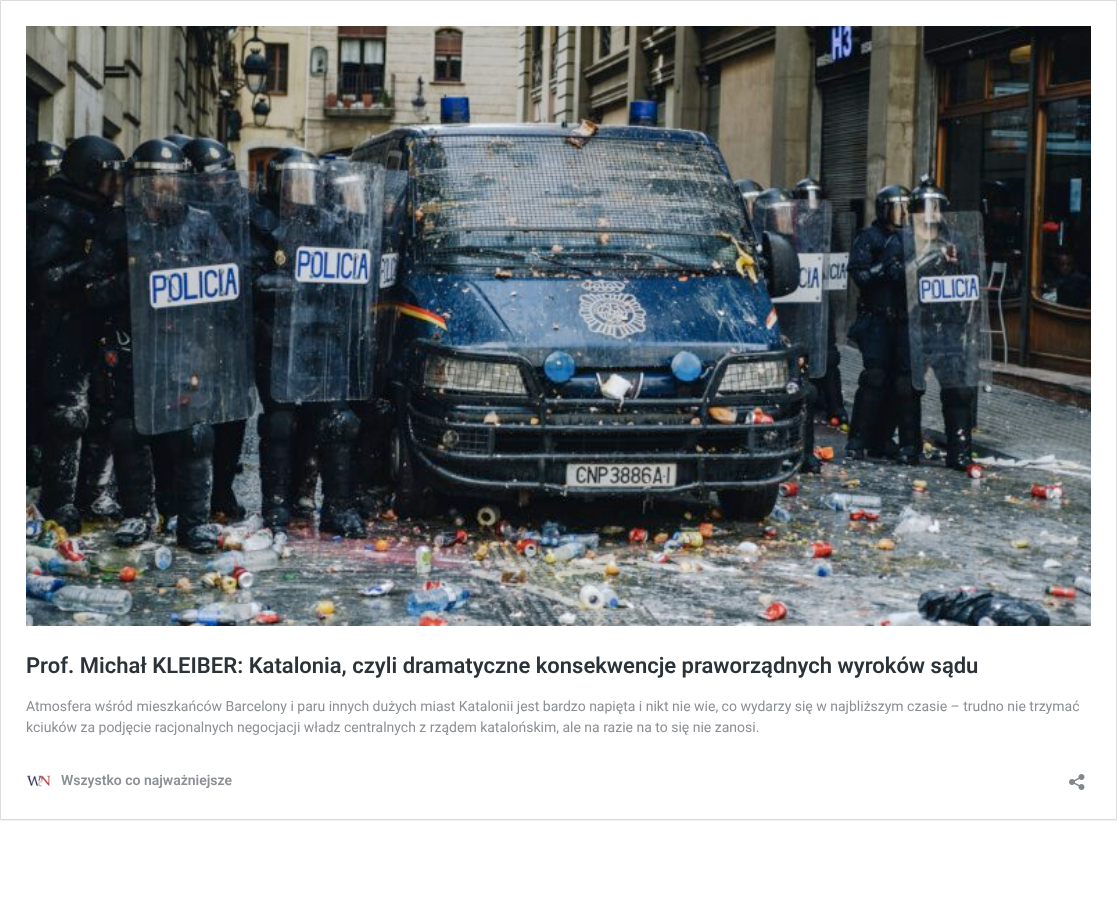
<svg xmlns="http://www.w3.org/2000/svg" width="1117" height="900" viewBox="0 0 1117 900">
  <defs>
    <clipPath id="clip1"><path d="M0 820h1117v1H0z"/></clipPath>
  </defs>
  <rect width="100%" height="100%" fill="#fff"/>
  <g clip-path="url(#clip1)">
    <path d="M0 1h1117v820H0z" fill="#0000000d" filter="blur(0.5px)"/>
  </g>
  <path d="M0.5 0.5h1116v819H0.5z" fill="none" stroke="#dcdcde"/>
  <image x="26" y="26" width="1065" height="600" href="img/1.png"/>
  <image x="26" y="775" width="25" height="12" href="img/2.png"/>
  <image x="1069" y="774" width="16" height="16" href="img/3.png"/>
  <text x="26" y="673" font-family="Roboto" font-size="22" font-weight="600" fill="#2c3338">Prof. Michał KLEIBER: Katalonia, czyli dramatyczne konsekwencje praworządnych wyroków sądu</text>
  <g font-family="Roboto" font-size="14" fill="#8c8f94">
    <text x="26" y="711">Atmosfera wśród mieszkańców Barcelony i paru innych dużych miast Katalonii jest bardzo napięta i nikt nie wie, co wydarzy się w najbliższym czasie – trudno nie trzymać</text>
    <text x="26" y="732">kciuków za podjęcie racjonalnych negocjacji władz centralnych z rządem katalońskim, ale na razie na to się nie zanosi.</text>
  </g>
  <text x="61" y="785" font-family="Roboto" font-size="14" font-weight="600" fill="#8c8f94">Wszystko co najważniejsze</text>
</svg>
